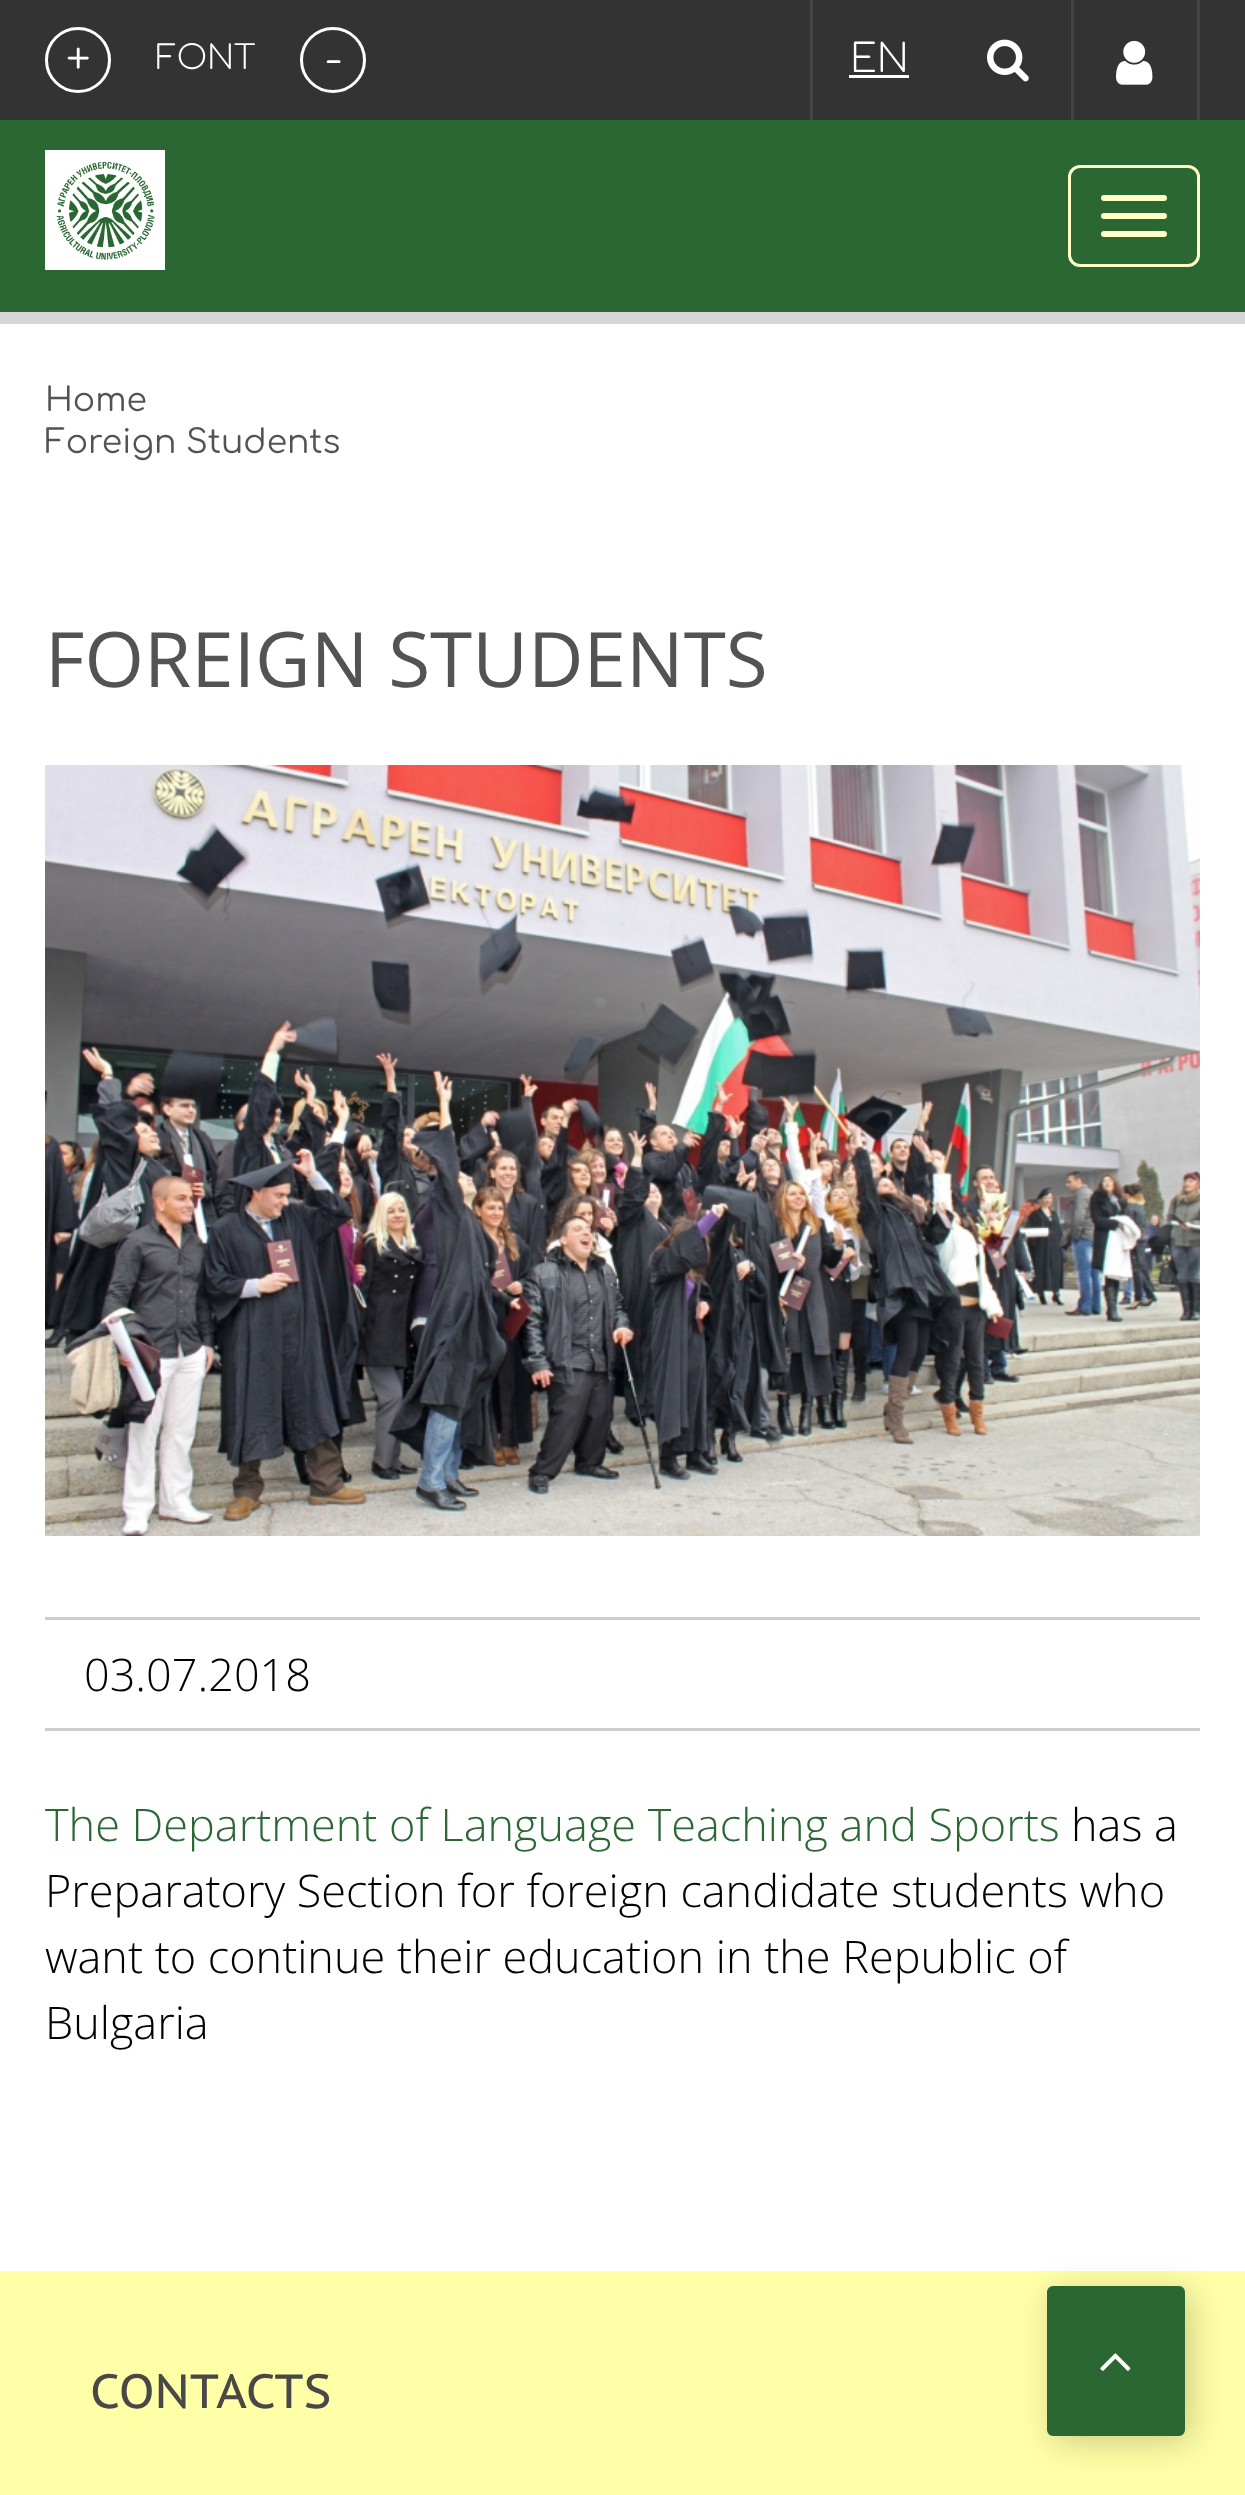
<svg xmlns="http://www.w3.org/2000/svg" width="1245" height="2495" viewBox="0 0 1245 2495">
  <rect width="100%" height="100%" fill="#fff"/>
  <path d="M0 312h1245v12H0z" fill="#d6d6d6"/>
  <path d="M0 0h1245v120H0z" fill="#333"/>
  <circle cx="78" cy="60" r="31.5" fill="none" stroke="#fff" stroke-width="3"/>
  <circle cx="333" cy="60" r="31.5" fill="none" stroke="#fff" stroke-width="3"/>
  <path d="M810 0h3v120H810z" fill="#444"/>
  <path d="M849 75h60v3H849z" fill="#fff"/>
  <path d="M1071 0h3v120H1071z" fill="#444"/>
  <image x="987" y="39" width="42" height="43" href="img/1.png"/>
  <path d="M1197 0h3v120H1197z" fill="#444"/>
  <image x="1116" y="40" width="37" height="45" href="img/2.png"/>
  <path d="M0 120h1245v192H0z" fill="#2a6733"/>
  <image x="45" y="150" width="120" height="120" href="img/3.png"/>
  <rect x="1069.5" y="166.5" width="129" height="99" rx="10.5" fill="none" stroke="#ffffc7" stroke-width="3"/>
  <rect x="1101" y="195" width="66" height="6" rx="3" fill="#ffffc7"/>
  <rect x="1101" y="213" width="66" height="6" rx="3" fill="#ffffc7"/>
  <rect x="1101" y="231" width="66" height="6" rx="3" fill="#ffffc7"/>
  <image x="45" y="765" width="1155" height="771" href="img/4.png"/>
  <path d="M45 1617h1155v3H45z" fill="#ccc"/>
  <path d="M45 1728h1155v3H45z" fill="#ccc"/>
  <path d="M0 2271h1245v224H0z" fill="#ffffa7"/>
  <rect x="1053" y="2292" width="138" height="150" rx="6" fill="#00000033" filter="blur(16.5px)"/>
  <rect x="1048.5" y="2287.5" width="135" height="147" rx="4.5" fill="#2a6733" stroke="#2a6733" stroke-width="3"/>
  <image x="1100" y="2353" width="31" height="18" href="img/5.png"/>
  <text x="66" y="74" font-family="Comfortaa" font-size="45" font-weight="300" fill="#fff">+</text>
  <text x="156" y="69" font-family="Comfortaa" font-size="33" font-weight="300" fill="#fff">FONT</text>
  <text x="325" y="74" font-family="Comfortaa" font-size="45" font-weight="300" fill="#fff">-</text>
  <text x="850" y="72" font-family="Comfortaa" font-size="39" font-weight="300" fill="#fff">EN</text>
  <g font-family="Comfortaa" font-size="33" fill="#535353">
    <text x="45" y="411">Home</text>
    <text x="45" y="453">Foreign Students</text>
  </g>
  <text x="45" y="687" font-family="Open Sans" font-size="76.5" fill="#535353">FOREIGN STUDENTS</text>
  <text x="84" y="1691" font-family="Open Sans" font-size="45" font-weight="300" fill="#000">03.07.2018</text>
  <text x="45" y="1841" font-family="Open Sans" font-size="45" font-weight="300" fill="#2a6733">The Department of Language Teaching and Sports</text>
  <g font-family="Open Sans" font-size="45" font-weight="300" fill="#000">
    <text x="1071" y="1841">has a</text>
    <text x="45" y="1907">Preparatory Section for foreign candidate students who</text>
    <text x="45" y="1973">want to continue their education in the Republic of</text>
    <text x="45" y="2039">Bulgaria</text>
  </g>
  <text x="90" y="2408" font-family="PT Sans Caption" font-size="48" fill="#494848">CONTACTS</text>
</svg>
